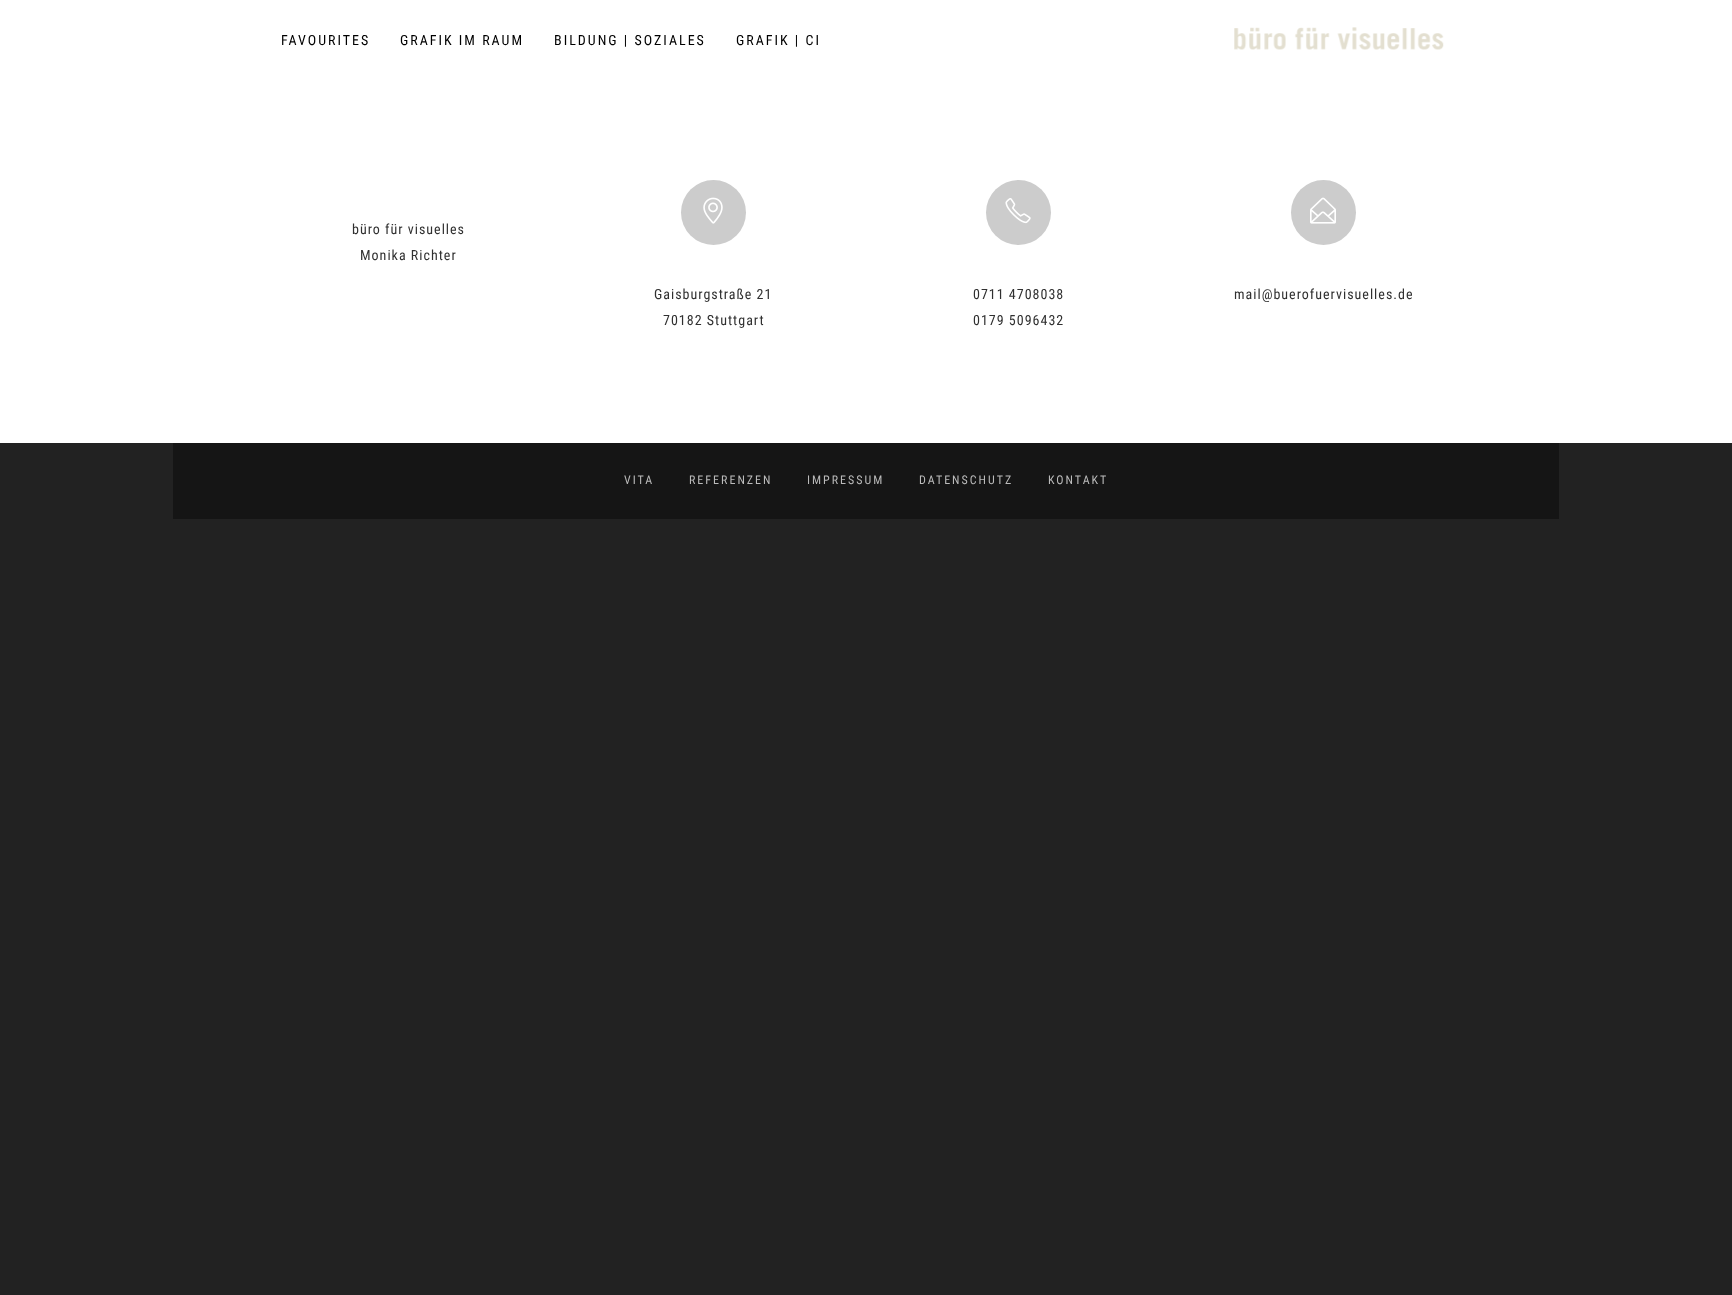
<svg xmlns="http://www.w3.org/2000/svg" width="1732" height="1295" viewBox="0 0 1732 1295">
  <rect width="100%" height="100%" fill="#222"/>
  <path d="M0 0h1732v443H0z" fill="#fff"/>
  <image x="1234" y="27" width="210" height="23" href="img/1.png"/>
  <circle cx="713.5" cy="212.5" r="32.5" fill="#ccc"/>
  <image x="703" y="197" width="20" height="27" href="img/2.png"/>
  <circle cx="1018.5" cy="212.5" r="32.5" fill="#ccc"/>
  <image x="1005" y="198" width="26" height="26" href="img/3.png"/>
  <circle cx="1323.5" cy="212.5" r="32.5" fill="#ccc"/>
  <image x="1310" y="197" width="26" height="27" href="img/4.png"/>
  <path d="M173 443h1386v76H173z" fill="#151515"/>
  <g font-family="Roboto Condensed" font-size="14" letter-spacing="2" fill="#000">
    <text x="281" y="45">FAVOURITES</text>
    <text x="400" y="45">GRAFIK IM RAUM</text>
    <text x="554" y="45">BILDUNG | SOZIALES</text>
    <text x="736" y="45">GRAFIK | CI</text>
  </g>
  <g font-family="Roboto Condensed" font-size="14" letter-spacing="1" fill="#303030">
    <text x="352" y="234">büro für visuelles</text>
    <text x="360" y="260">Monika Richter</text>
    <text x="654" y="299">Gaisburgstraße 21</text>
    <text x="663" y="325">70182 Stuttgart</text>
    <text x="973" y="299">0711 4708038</text>
    <text x="973" y="325">0179 5096432</text>
    <text x="1234" y="299">mail@buerofuervisuelles.de</text>
  </g>
  <g font-family="Roboto Condensed" font-size="12" letter-spacing="2" fill="#bbb">
    <text x="624" y="484">VITA</text>
    <text x="689" y="484">REFERENZEN</text>
    <text x="807" y="484">IMPRESSUM</text>
    <text x="919" y="484">DATENSCHUTZ</text>
    <text x="1048" y="484">KONTAKT</text>
  </g>
</svg>
